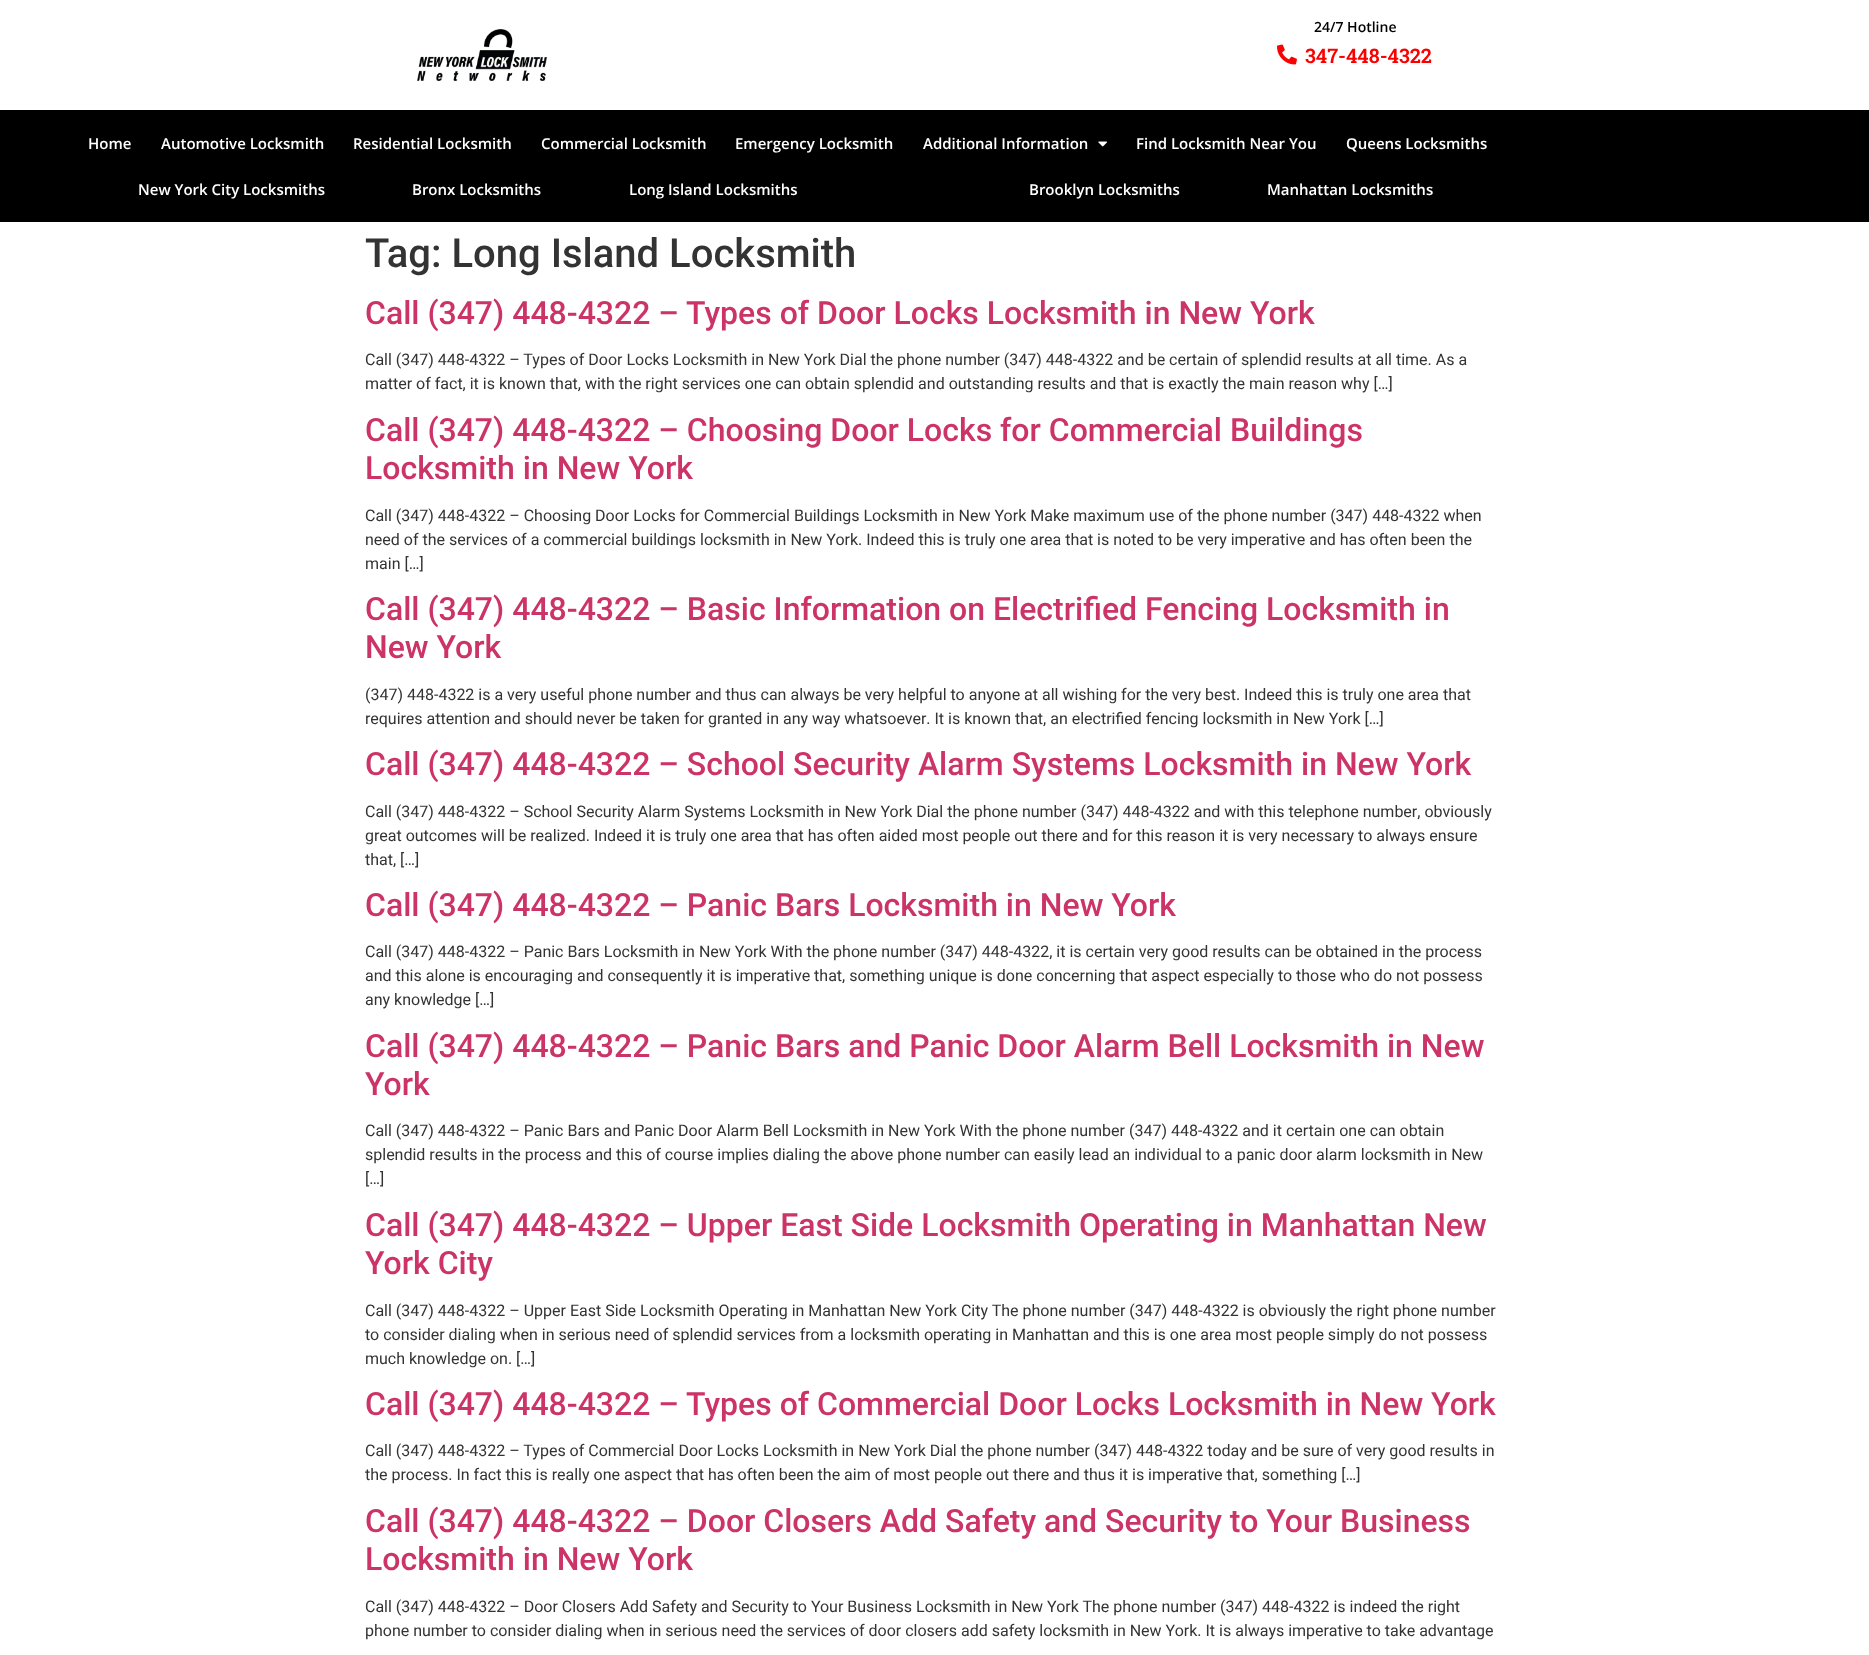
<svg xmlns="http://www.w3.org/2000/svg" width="1869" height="1655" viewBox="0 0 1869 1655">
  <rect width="100%" height="100%" fill="#fff"/>
  <image x="417" y="29" width="130" height="52" href="img/1.png"/>
  <image x="1277" y="44" width="20" height="21" href="img/2.png"/>
  <path d="M0 110h1869v112H0z" fill="#000"/>
  <image x="1098" y="141" width="9" height="6" href="img/3.png"/>
  <text x="1314" y="32" font-family="Open Sans" font-size="14" font-weight="600" fill="#000">24/7 Hotline</text>
  <text x="1305" y="63" font-family="Roboto Slab" font-size="20" font-weight="600" fill="#fb0000">347-448-4322</text>
  <g font-family="Open Sans" font-size="15" font-weight="600" fill="#fff">
    <text x="88" y="149">Home</text>
    <text x="161" y="149">Automotive Locksmith</text>
    <text x="353" y="149">Residential Locksmith</text>
    <text x="541" y="149">Commercial Locksmith</text>
    <text x="735" y="149">Emergency Locksmith</text>
    <text x="923" y="149">Additional Information</text>
    <text x="1136" y="149">Find Locksmith Near You</text>
    <text x="1346" y="149">Queens Locksmiths</text>
    <text x="138" y="195">New York City Locksmiths</text>
    <text x="412" y="195">Bronx Locksmiths</text>
    <text x="629" y="195">Long Island Locksmiths</text>
    <text x="1029" y="195">Brooklyn Locksmiths</text>
    <text x="1267" y="195">Manhattan Locksmiths</text>
  </g>
  <text x="365" y="267" font-family="Roboto" font-size="40" font-weight="500" fill="#333">Tag: Long Island Locksmith</text>
  <text x="365" y="324" font-family="Roboto" font-size="32" font-weight="500" fill="#c36">Call (347) 448-4322 – Types of Door Locks Locksmith in New York</text>
  <g font-family="Roboto" font-size="16" fill="#333">
    <text x="365" y="365">Call (347) 448-4322 – Types of Door Locks Locksmith in New York Dial the phone number (347) 448-4322 and be certain of splendid results at all time. As a</text>
    <text x="365" y="389">matter of fact, it is known that, with the right services one can obtain splendid and outstanding results and that is exactly the main reason why […]</text>
  </g>
  <g font-family="Roboto" font-size="32" font-weight="500" fill="#c36">
    <text x="365" y="441">Call (347) 448-4322 – Choosing Door Locks for Commercial Buildings</text>
    <text x="365" y="479">Locksmith in New York</text>
  </g>
  <g font-family="Roboto" font-size="16" fill="#333">
    <text x="365" y="521">Call (347) 448-4322 – Choosing Door Locks for Commercial Buildings Locksmith in New York Make maximum use of the phone number (347) 448-4322 when</text>
    <text x="365" y="545">need of the services of a commercial buildings locksmith in New York. Indeed this is truly one area that is noted to be very imperative and has often been the</text>
    <text x="365" y="569">main […]</text>
  </g>
  <g font-family="Roboto" font-size="32" font-weight="500" fill="#c36">
    <text x="365" y="620">Call (347) 448-4322 – Basic Information on Electrified Fencing Locksmith in</text>
    <text x="365" y="658">New York</text>
  </g>
  <g font-family="Roboto" font-size="16" fill="#333">
    <text x="365" y="700">(347) 448-4322 is a very useful phone number and thus can always be very helpful to anyone at all wishing for the very best. Indeed this is truly one area that</text>
    <text x="365" y="724">requires attention and should never be taken for granted in any way whatsoever. It is known that, an electrified fencing locksmith in New York […]</text>
  </g>
  <text x="365" y="775" font-family="Roboto" font-size="32" font-weight="500" fill="#c36">Call (347) 448-4322 – School Security Alarm Systems Locksmith in New York</text>
  <g font-family="Roboto" font-size="16" fill="#333">
    <text x="365" y="817">Call (347) 448-4322 – School Security Alarm Systems Locksmith in New York Dial the phone number (347) 448-4322 and with this telephone number, obviously</text>
    <text x="365" y="841">great outcomes will be realized. Indeed it is truly one area that has often aided most people out there and for this reason it is very necessary to always ensure</text>
    <text x="365" y="865">that, […]</text>
  </g>
  <text x="365" y="916" font-family="Roboto" font-size="32" font-weight="500" fill="#c36">Call (347) 448-4322 – Panic Bars Locksmith in New York</text>
  <g font-family="Roboto" font-size="16" fill="#333">
    <text x="365" y="957">Call (347) 448-4322 – Panic Bars Locksmith in New York With the phone number (347) 448-4322, it is certain very good results can be obtained in the process</text>
    <text x="365" y="981">and this alone is encouraging and consequently it is imperative that, something unique is done concerning that aspect especially to those who do not possess</text>
    <text x="365" y="1005">any knowledge […]</text>
  </g>
  <g font-family="Roboto" font-size="32" font-weight="500" fill="#c36">
    <text x="365" y="1057">Call (347) 448-4322 – Panic Bars and Panic Door Alarm Bell Locksmith in New</text>
    <text x="365" y="1095">York</text>
  </g>
  <g font-family="Roboto" font-size="16" fill="#333">
    <text x="365" y="1136">Call (347) 448-4322 – Panic Bars and Panic Door Alarm Bell Locksmith in New York With the phone number (347) 448-4322 and it certain one can obtain</text>
    <text x="365" y="1160">splendid results in the process and this of course implies dialing the above phone number can easily lead an individual to a panic door alarm locksmith in New</text>
    <text x="365" y="1184">[…]</text>
  </g>
  <g font-family="Roboto" font-size="32" font-weight="500" fill="#c36">
    <text x="365" y="1236">Call (347) 448-4322 – Upper East Side Locksmith Operating in Manhattan New</text>
    <text x="365" y="1274">York City</text>
  </g>
  <g font-family="Roboto" font-size="16" fill="#333">
    <text x="365" y="1316">Call (347) 448-4322 – Upper East Side Locksmith Operating in Manhattan New York City The phone number (347) 448-4322 is obviously the right phone number</text>
    <text x="365" y="1340">to consider dialing when in serious need of splendid services from a locksmith operating in Manhattan and this is one area most people simply do not possess</text>
    <text x="365" y="1364">much knowledge on. […]</text>
  </g>
  <text x="365" y="1415" font-family="Roboto" font-size="32" font-weight="500" fill="#c36">Call (347) 448-4322 – Types of Commercial Door Locks Locksmith in New York</text>
  <g font-family="Roboto" font-size="16" fill="#333">
    <text x="365" y="1456">Call (347) 448-4322 – Types of Commercial Door Locks Locksmith in New York Dial the phone number (347) 448-4322 today and be sure of very good results in</text>
    <text x="365" y="1480">the process. In fact this is really one aspect that has often been the aim of most people out there and thus it is imperative that, something […]</text>
  </g>
  <g font-family="Roboto" font-size="32" font-weight="500" fill="#c36">
    <text x="365" y="1532">Call (347) 448-4322 – Door Closers Add Safety and Security to Your Business</text>
    <text x="365" y="1570">Locksmith in New York</text>
  </g>
  <g font-family="Roboto" font-size="16" fill="#333">
    <text x="365" y="1612">Call (347) 448-4322 – Door Closers Add Safety and Security to Your Business Locksmith in New York The phone number (347) 448-4322 is indeed the right</text>
    <text x="365" y="1636">phone number to consider dialing when in serious need the services of door closers add safety locksmith in New York. It is always imperative to take advantage</text>
  </g>
</svg>
